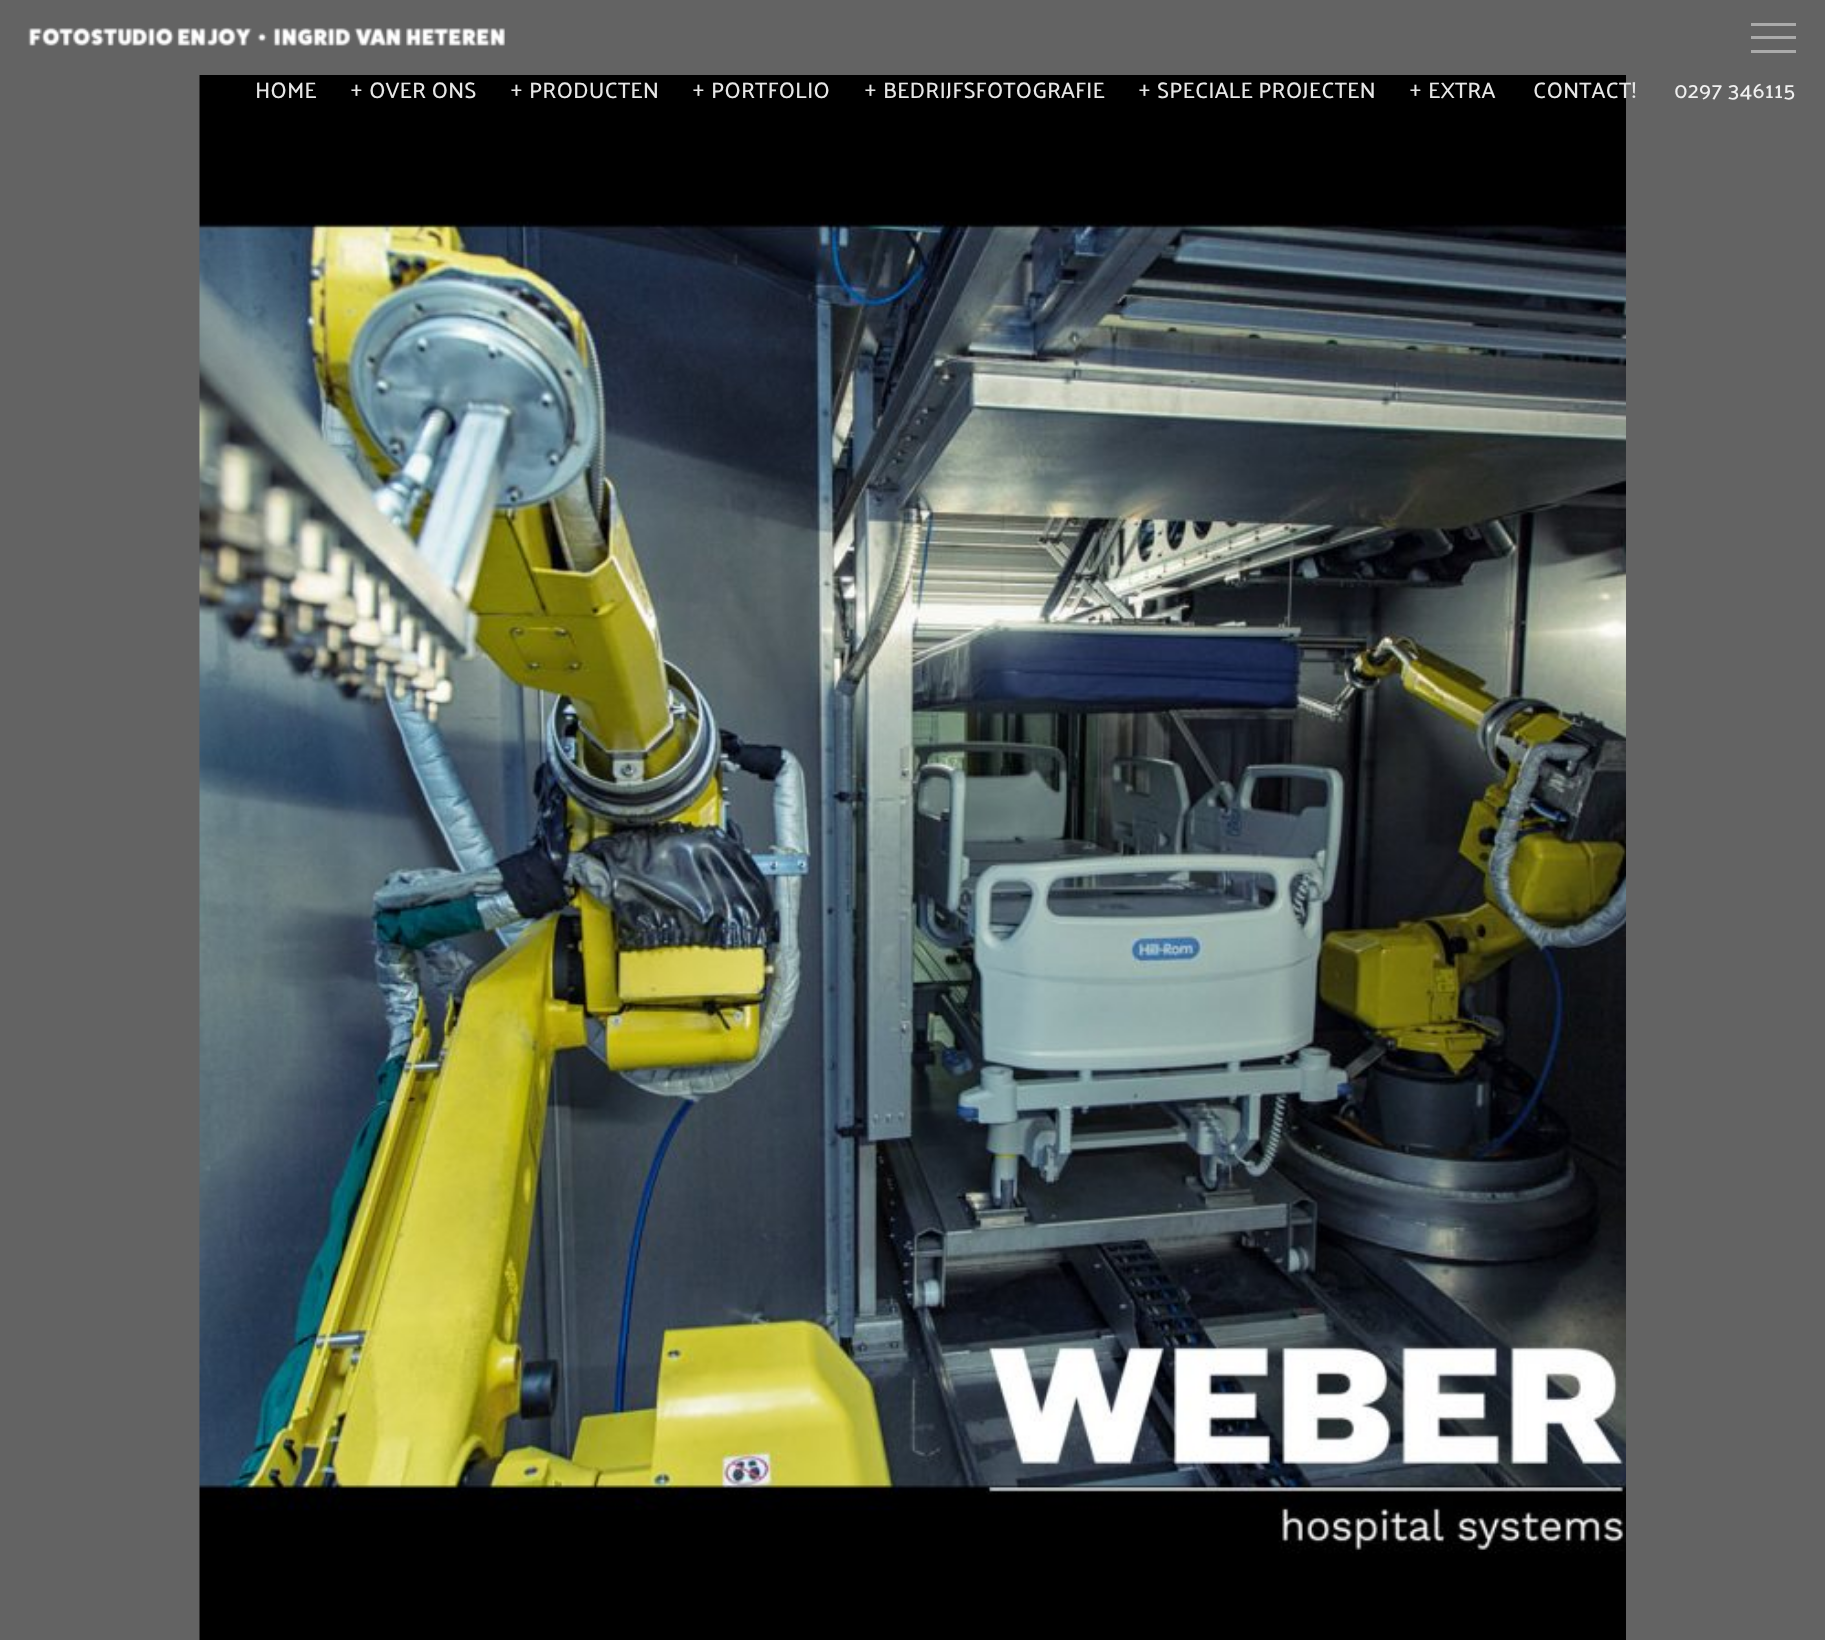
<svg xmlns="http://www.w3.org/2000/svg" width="1825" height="1640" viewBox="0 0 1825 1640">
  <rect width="100%" height="100%" fill="#636363"/>
  <image x="199" y="75" width="1427" height="1565" href="img/1.png"/>
  <image x="28" y="27" width="477" height="19" href="img/2.png"/>
  <path d="M1751 23h45v3H1751z" fill="#aaa"/>
  <path d="M1751 36h45v3H1751z" fill="#aaa"/>
  <path d="M1751 50h45v3H1751z" fill="#aaa"/>
  <text x="255" y="98" font-family="Palanquin" font-size="22.5" font-weight="500" fill="#e6e6e6">HOME</text>
  <text x="351" y="96" font-family="Palanquin" font-size="21" font-weight="500" fill="#e6e6e6">+</text>
  <text x="369" y="98" font-family="Palanquin" font-size="22.5" font-weight="500" fill="#e6e6e6">OVER ONS</text>
  <text x="511" y="96" font-family="Palanquin" font-size="21" font-weight="500" fill="#e6e6e6">+</text>
  <text x="529" y="98" font-family="Palanquin" font-size="22.5" font-weight="500" fill="#e6e6e6">PRODUCTEN</text>
  <text x="693" y="96" font-family="Palanquin" font-size="21" font-weight="500" fill="#e6e6e6">+</text>
  <text x="711" y="98" font-family="Palanquin" font-size="22.5" font-weight="500" fill="#e6e6e6">PORTFOLIO</text>
  <text x="865" y="96" font-family="Palanquin" font-size="21" font-weight="500" fill="#e6e6e6">+</text>
  <text x="883" y="98" font-family="Palanquin" font-size="22.5" font-weight="500" fill="#e6e6e6">BEDRIJFSFOTOGRAFIE</text>
  <text x="1139" y="96" font-family="Palanquin" font-size="21" font-weight="500" fill="#e6e6e6">+</text>
  <text x="1157" y="98" font-family="Palanquin" font-size="22.5" font-weight="500" fill="#e6e6e6">SPECIALE PROJECTEN</text>
  <text x="1410" y="96" font-family="Palanquin" font-size="21" font-weight="500" fill="#e6e6e6">+</text>
  <g font-family="Palanquin" font-size="22.5" font-weight="500" fill="#e6e6e6">
    <text x="1428" y="98">EXTRA</text>
    <text x="1533" y="98">CONTACT!</text>
  </g>
  <text x="1674" y="98" font-family="Palanquin" font-size="22.5" font-weight="500" fill="#efefef">0297 346115</text>
</svg>
